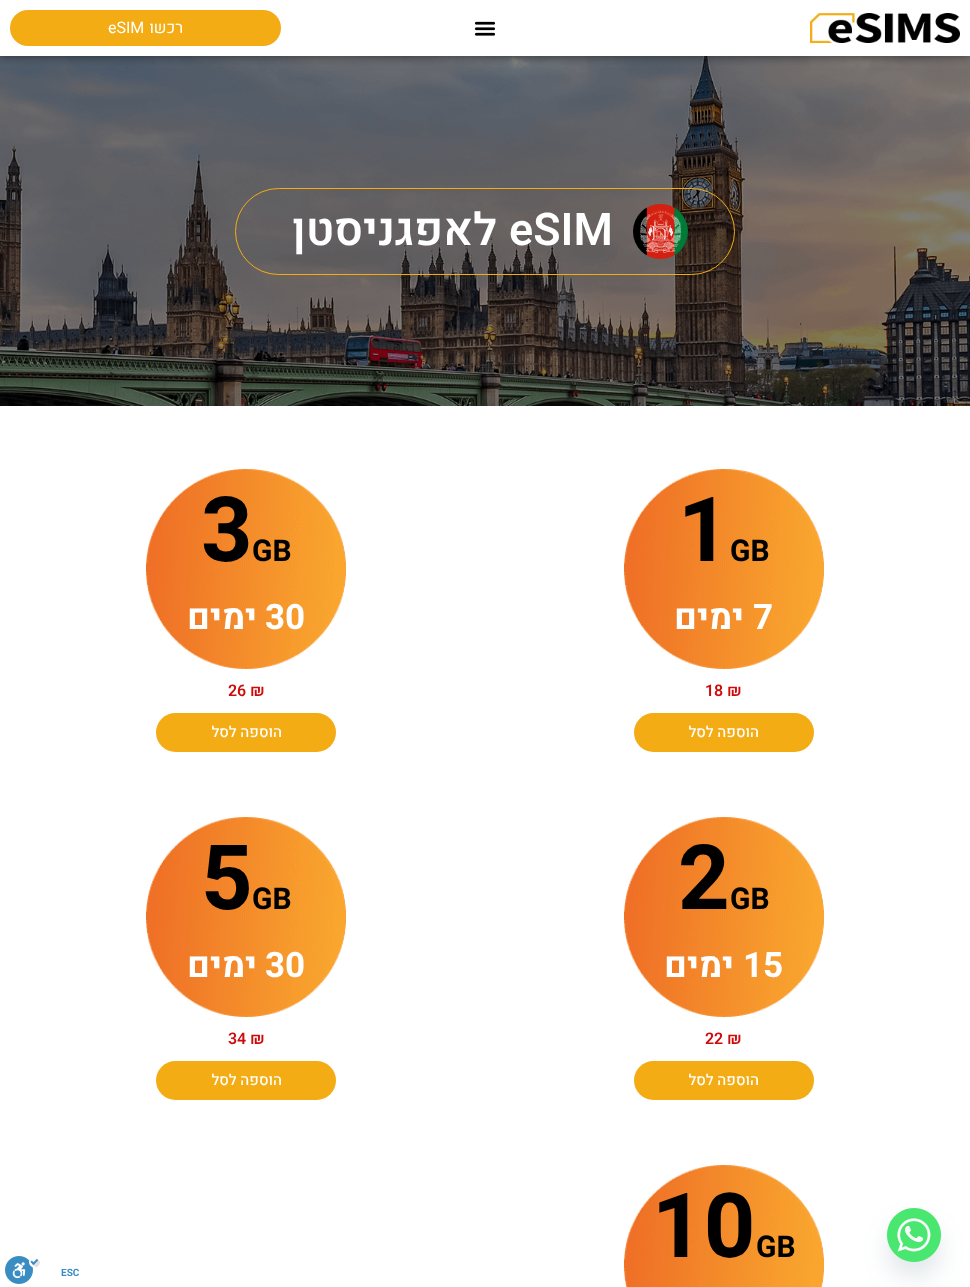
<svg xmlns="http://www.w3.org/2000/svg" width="970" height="1287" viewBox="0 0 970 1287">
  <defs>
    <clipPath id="clip1"><path d="M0 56h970v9H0z"/></clipPath>
  </defs>
  <rect width="100%" height="100%" fill="#fff"/>
  <image x="0" y="56" width="970" height="350" href="img/4.png"/>
  <g clip-path="url(#clip1)">
    <path d="M0 0h970v56H0z" fill="#00000080" filter="blur(5px)"/>
  </g>
  <image x="810" y="13" width="150" height="30" href="img/1.png"/>
  <image x="474" y="21" width="22" height="15" href="img/2.png"/>
  <rect x="10" y="10" width="271" height="36" rx="18" fill="#f3ac14"/>
  <rect x="887" y="1224" width="54" height="54" rx="27" fill="#49687e29" filter="blur(12px)"/>
  <image x="887" y="1208" width="54" height="54" href="img/3.png"/>
  <rect x="235.5" y="188.5" width="499" height="86" rx="43" fill="none" stroke="#f3ac14"/>
  <image x="633" y="204" width="55" height="55" href="img/5.png"/>
  <image x="624" y="469" width="200" height="200" href="img/6.png"/>
  <rect x="634" y="713" width="180" height="39" rx="19.5" fill="#f3ac14"/>
  <image x="146" y="469" width="200" height="200" href="img/7.png"/>
  <rect x="156" y="713" width="180" height="39" rx="19.5" fill="#f3ac14"/>
  <image x="624" y="817" width="200" height="200" href="img/8.png"/>
  <rect x="634" y="1061" width="180" height="39" rx="19.5" fill="#f3ac14"/>
  <image x="146" y="817" width="200" height="200" href="img/9.png"/>
  <rect x="156" y="1061" width="180" height="39" rx="19.5" fill="#f3ac14"/>
  <image x="624" y="1165" width="200" height="122" href="img/10.png"/>
  <image x="5" y="1256" width="35" height="28" href="img/11.png"/>
  <text x="183" y="33" font-family="Heebo" font-size="16" direction="rtl" fill="#fff">רכשו</text>
  <text x="108" y="33" font-family="Heebo" font-size="16" fill="#fff">eSIM</text>
  <text x="509" y="245" font-family="Heebo" font-size="45" font-weight="600" fill="#fff">eSIM</text>
  <text x="497" y="245" font-family="Heebo" font-size="45" font-weight="600" direction="rtl" fill="#fff">לאפגניסטן</text>
  <text x="730" y="561" font-family="Heebo" font-size="30" font-weight="bold" fill="#000">GB</text>
  <text x="678" y="561" font-family="Heebo" font-size="90" font-weight="bold" fill="#000">1</text>
  <text x="753" y="629" font-family="Heebo" font-size="35" font-weight="bold" fill="#fff">7</text>
  <text x="744" y="629" font-family="Heebo" font-size="35" font-weight="bold" direction="rtl" fill="#fff">ימים</text>
  <text x="705" y="696" font-family="Heebo" font-size="16" font-weight="600" fill="#cf0a0a">18 ₪</text>
  <text x="759" y="737" font-family="Heebo" font-size="15" font-weight="500" direction="rtl" fill="#fff">הוספה לסל</text>
  <text x="252" y="561" font-family="Heebo" font-size="30" font-weight="bold" fill="#000">GB</text>
  <text x="201" y="561" font-family="Heebo" font-size="90" font-weight="bold" fill="#000">3</text>
  <text x="265" y="629" font-family="Heebo" font-size="35" font-weight="bold" fill="#fff">30</text>
  <text x="257" y="629" font-family="Heebo" font-size="35" font-weight="bold" direction="rtl" fill="#fff">ימים</text>
  <text x="228" y="696" font-family="Heebo" font-size="16" font-weight="600" fill="#cf0a0a">26 ₪</text>
  <text x="282" y="737" font-family="Heebo" font-size="15" font-weight="500" direction="rtl" fill="#fff">הוספה לסל</text>
  <text x="730" y="909" font-family="Heebo" font-size="30" font-weight="bold" fill="#000">GB</text>
  <text x="678" y="909" font-family="Heebo" font-size="90" font-weight="bold" fill="#000">2</text>
  <text x="743" y="977" font-family="Heebo" font-size="35" font-weight="bold" fill="#fff">15</text>
  <text x="734" y="977" font-family="Heebo" font-size="35" font-weight="bold" direction="rtl" fill="#fff">ימים</text>
  <text x="705" y="1044" font-family="Heebo" font-size="16" font-weight="600" fill="#cf0a0a">22 ₪</text>
  <text x="759" y="1085" font-family="Heebo" font-size="15" font-weight="500" direction="rtl" fill="#fff">הוספה לסל</text>
  <text x="252" y="909" font-family="Heebo" font-size="30" font-weight="bold" fill="#000">GB</text>
  <text x="201" y="909" font-family="Heebo" font-size="90" font-weight="bold" fill="#000">5</text>
  <text x="265" y="977" font-family="Heebo" font-size="35" font-weight="bold" fill="#fff">30</text>
  <text x="257" y="977" font-family="Heebo" font-size="35" font-weight="bold" direction="rtl" fill="#fff">ימים</text>
  <text x="228" y="1044" font-family="Heebo" font-size="16" font-weight="600" fill="#cf0a0a">34 ₪</text>
  <text x="282" y="1085" font-family="Heebo" font-size="15" font-weight="500" direction="rtl" fill="#fff">הוספה לסל</text>
  <text x="756" y="1257" font-family="Heebo" font-size="30" font-weight="bold" fill="#000">GB</text>
  <text x="652" y="1257" font-family="Heebo" font-size="90" font-weight="bold" fill="#000">10</text>
  <text x="61" y="1276" font-family="Roboto" font-size="10" font-weight="bold" fill="#3a8dc2">ESC</text>
</svg>
